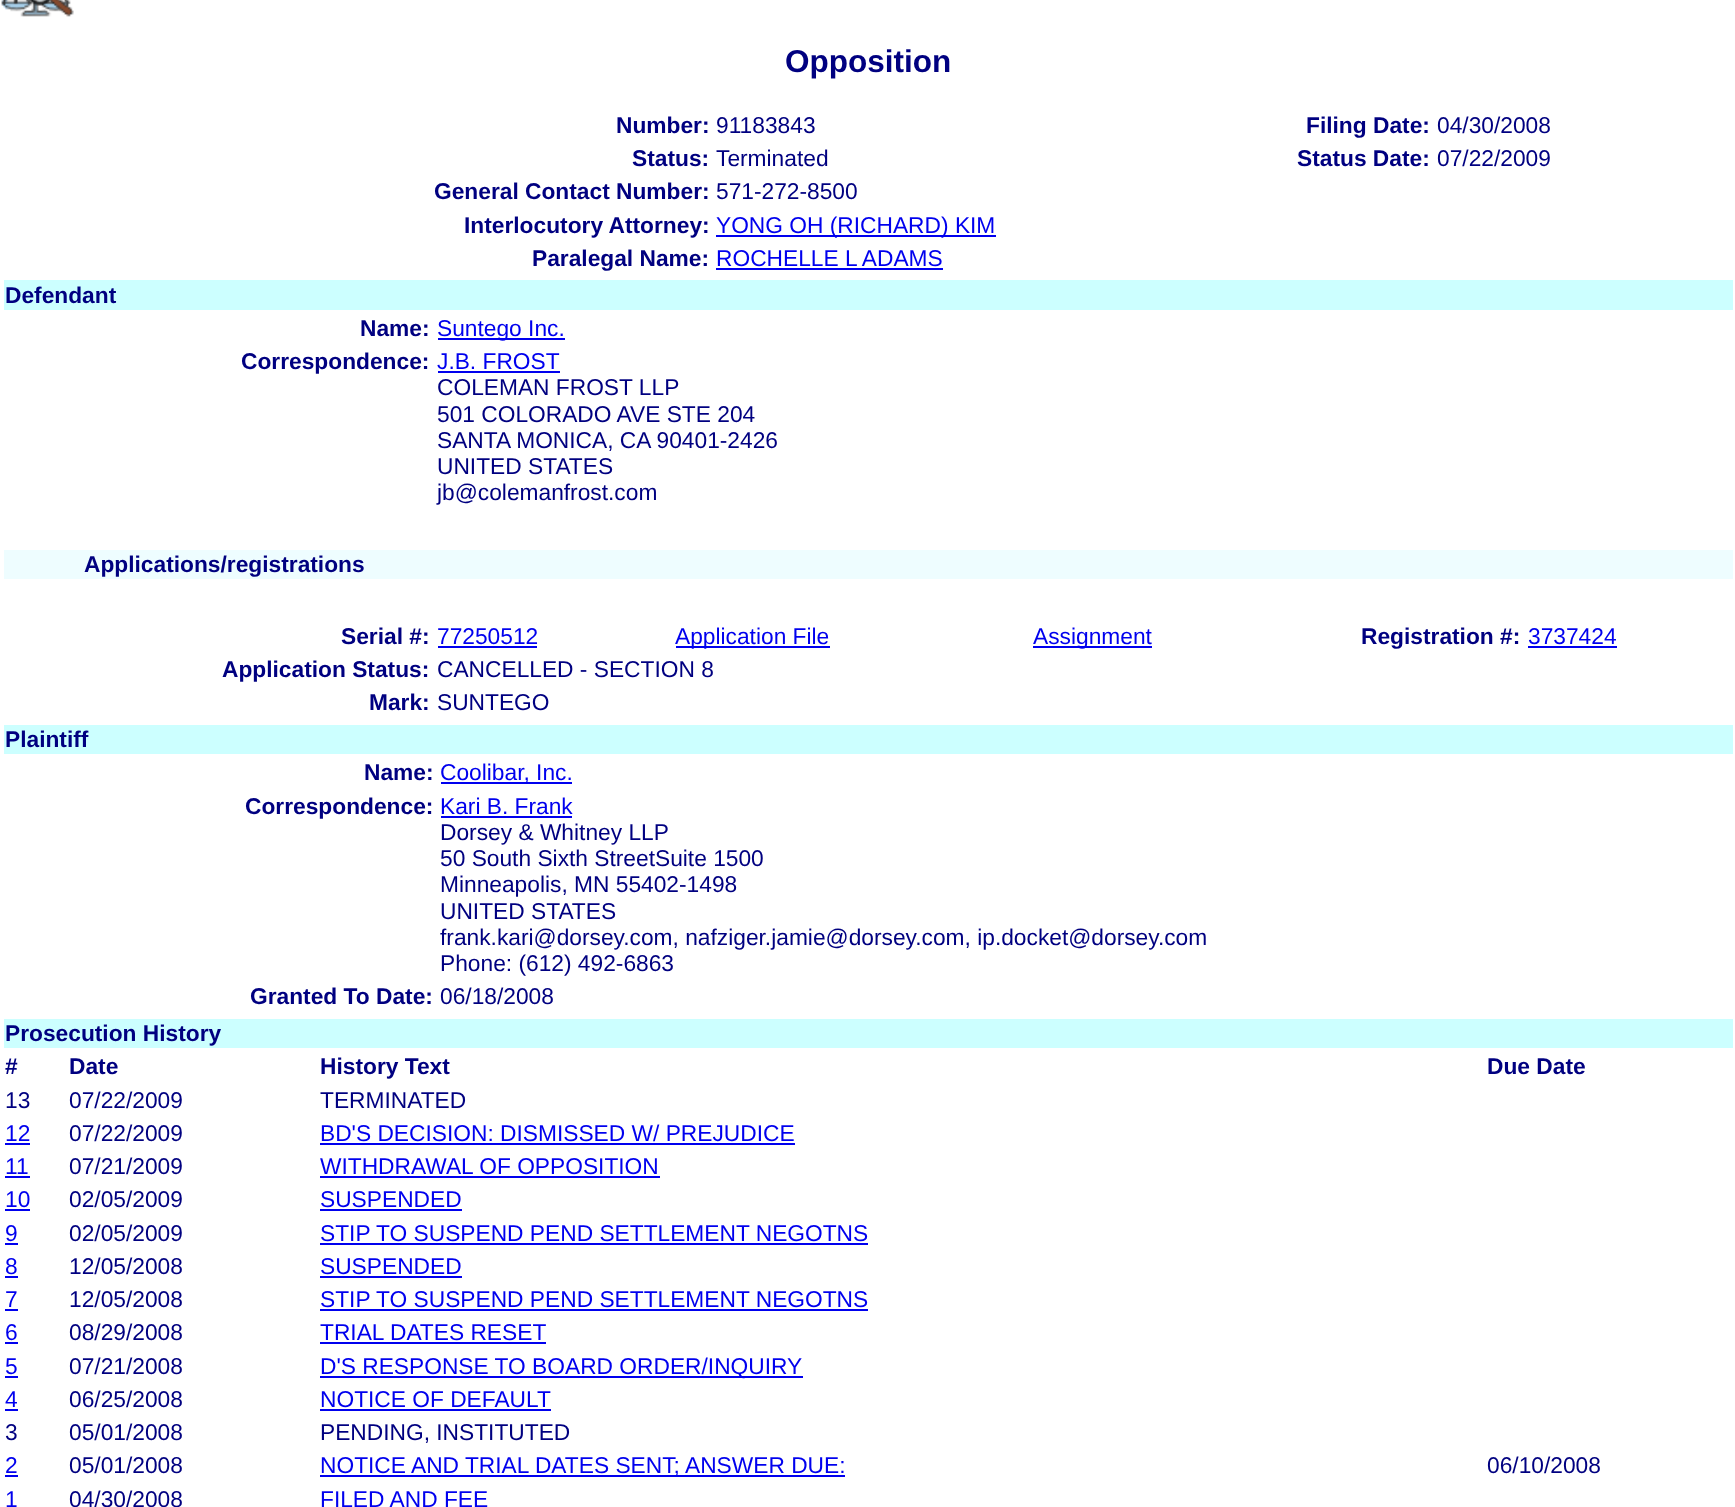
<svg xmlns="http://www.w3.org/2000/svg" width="1735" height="1507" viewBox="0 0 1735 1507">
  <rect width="100%" height="100%" fill="#fff"/>
  <image x="1" y="0" width="73" height="17" href="img/1.png"/>
  <path d="M716 235h280v2H716z" fill="#00e"/>
  <path d="M716 268h227v2H716z" fill="#00e"/>
  <path d="M4 280h1729v30H4z" fill="#cff"/>
  <path d="M438 338h127v2H438z" fill="#00e"/>
  <path d="M438 371h122v2H438z" fill="#00e"/>
  <path d="M4 550h1729v29H4z" fill="#eefdff"/>
  <path d="M438 646h99v2H438z" fill="#00e"/>
  <path d="M676 646h154v2H676z" fill="#00e"/>
  <path d="M1033 646h119v2H1033z" fill="#00e"/>
  <path d="M1528 646h89v2H1528z" fill="#00e"/>
  <path d="M4 725h1729v29H4z" fill="#cff"/>
  <path d="M441 782h131v2H441z" fill="#00e"/>
  <path d="M441 816h131v2H441z" fill="#00e"/>
  <path d="M4 1019h1729v29H4z" fill="#cff"/>
  <path d="M5 1143h25v2H5z" fill="#00e"/>
  <path d="M320 1143h475v2H320z" fill="#00e"/>
  <path d="M5 1176h25v2H5z" fill="#00e"/>
  <path d="M320 1176h340v2H320z" fill="#00e"/>
  <path d="M5 1209h25v2H5z" fill="#00e"/>
  <path d="M320 1209h142v2H320z" fill="#00e"/>
  <path d="M5 1243h13v2H5z" fill="#00e"/>
  <path d="M320 1243h548v2H320z" fill="#00e"/>
  <path d="M5 1276h13v2H5z" fill="#00e"/>
  <path d="M320 1276h142v2H320z" fill="#00e"/>
  <path d="M5 1309h13v2H5z" fill="#00e"/>
  <path d="M320 1309h548v2H320z" fill="#00e"/>
  <path d="M5 1342h13v2H5z" fill="#00e"/>
  <path d="M320 1342h226v2H320z" fill="#00e"/>
  <path d="M5 1376h13v2H5z" fill="#00e"/>
  <path d="M320 1376h483v2H320z" fill="#00e"/>
  <path d="M5 1409h13v2H5z" fill="#00e"/>
  <path d="M320 1409h231v2H320z" fill="#00e"/>
  <path d="M5 1475h13v2H5z" fill="#00e"/>
  <path d="M320 1475h525v2H320z" fill="#00e"/>
  <text x="785" y="72" font-family="Liberation Sans" font-size="31.5" font-weight="bold" fill="#000080">Opposition</text>
  <text x="616" y="133" font-family="Liberation Sans" font-size="22.75" font-weight="bold" fill="#000080">Number:</text>
  <text x="716" y="133" font-family="Liberation Sans" font-size="22.75" fill="#000080">91183843</text>
  <text x="1306" y="133" font-family="Liberation Sans" font-size="22.75" font-weight="bold" fill="#000080">Filing Date:</text>
  <text x="1437" y="133" font-family="Liberation Sans" font-size="22.75" fill="#000080">04/30/2008</text>
  <text x="632" y="166" font-family="Liberation Sans" font-size="22.75" font-weight="bold" fill="#000080">Status:</text>
  <text x="716" y="166" font-family="Liberation Sans" font-size="22.75" fill="#000080">Terminated</text>
  <text x="1297" y="166" font-family="Liberation Sans" font-size="22.75" font-weight="bold" fill="#000080">Status Date:</text>
  <text x="1437" y="166" font-family="Liberation Sans" font-size="22.75" fill="#000080">07/22/2009</text>
  <text x="434" y="199" font-family="Liberation Sans" font-size="22.75" font-weight="bold" fill="#000080">General Contact Number:</text>
  <text x="716" y="199" font-family="Liberation Sans" font-size="22.75" fill="#000080">571-272-8500</text>
  <text x="464" y="233" font-family="Liberation Sans" font-size="22.75" font-weight="bold" fill="#000080">Interlocutory Attorney:</text>
  <text x="716" y="233" font-family="Liberation Sans" font-size="22.75" fill="#00e">YONG OH (RICHARD) KIM</text>
  <text x="532" y="266" font-family="Liberation Sans" font-size="22.75" font-weight="bold" fill="#000080">Paralegal Name:</text>
  <text x="716" y="266" font-family="Liberation Sans" font-size="22.75" fill="#00e">ROCHELLE L ADAMS</text>
  <g font-family="Liberation Sans" font-size="22.75" font-weight="bold" fill="#000080">
    <text x="5" y="303">Defendant</text>
    <text x="360" y="336">Name:</text>
  </g>
  <text x="437" y="336" font-family="Liberation Sans" font-size="22.75" fill="#00e">Suntego Inc.</text>
  <text x="241" y="369" font-family="Liberation Sans" font-size="22.75" font-weight="bold" fill="#000080">Correspondence:</text>
  <text x="437" y="369" font-family="Liberation Sans" font-size="22.75" fill="#00e">J.B. FROST</text>
  <g font-family="Liberation Sans" font-size="22.75" fill="#000080">
    <text x="437" y="395">COLEMAN FROST LLP</text>
    <text x="437" y="422">501 COLORADO AVE STE 204</text>
    <text x="437" y="448">SANTA MONICA, CA 90401-2426</text>
    <text x="437" y="474">UNITED STATES</text>
    <text x="437" y="500">jb@colemanfrost.com</text>
  </g>
  <g font-family="Liberation Sans" font-size="22.75" font-weight="bold" fill="#000080">
    <text x="84" y="572">Applications/registrations</text>
    <text x="341" y="644">Serial #:</text>
  </g>
  <g font-family="Liberation Sans" font-size="22.75" fill="#00e">
    <text x="437" y="644">77250512</text>
    <text x="675" y="644">Application File</text>
    <text x="1033" y="644">Assignment</text>
  </g>
  <text x="1361" y="644" font-family="Liberation Sans" font-size="22.75" font-weight="bold" fill="#000080">Registration #:</text>
  <text x="1528" y="644" font-family="Liberation Sans" font-size="22.75" fill="#00e">3737424</text>
  <text x="222" y="677" font-family="Liberation Sans" font-size="22.75" font-weight="bold" fill="#000080">Application Status:</text>
  <text x="437" y="677" font-family="Liberation Sans" font-size="22.75" fill="#000080">CANCELLED - SECTION 8</text>
  <text x="369" y="710" font-family="Liberation Sans" font-size="22.75" font-weight="bold" fill="#000080">Mark:</text>
  <text x="437" y="710" font-family="Liberation Sans" font-size="22.75" fill="#000080">SUNTEGO</text>
  <g font-family="Liberation Sans" font-size="22.75" font-weight="bold" fill="#000080">
    <text x="5" y="747">Plaintiff</text>
    <text x="364" y="780">Name:</text>
  </g>
  <text x="440" y="780" font-family="Liberation Sans" font-size="22.75" fill="#00e">Coolibar, Inc.</text>
  <text x="245" y="814" font-family="Liberation Sans" font-size="22.75" font-weight="bold" fill="#000080">Correspondence:</text>
  <text x="440" y="814" font-family="Liberation Sans" font-size="22.75" fill="#00e">Kari B. Frank</text>
  <g font-family="Liberation Sans" font-size="22.75" fill="#000080">
    <text x="440" y="840">Dorsey &amp; Whitney LLP</text>
    <text x="440" y="866">50 South Sixth StreetSuite 1500</text>
    <text x="440" y="892">Minneapolis, MN 55402-1498</text>
    <text x="440" y="919">UNITED STATES</text>
    <text x="440" y="945">frank.kari@dorsey.com, nafziger.jamie@dorsey.com, ip.docket@dorsey.com</text>
    <text x="440" y="971">Phone: (612) 492-6863</text>
  </g>
  <text x="250" y="1004" font-family="Liberation Sans" font-size="22.75" font-weight="bold" fill="#000080">Granted To Date:</text>
  <text x="440" y="1004" font-family="Liberation Sans" font-size="22.75" fill="#000080">06/18/2008</text>
  <g font-family="Liberation Sans" font-size="22.75" font-weight="bold" fill="#000080">
    <text x="5" y="1041">Prosecution History</text>
    <text x="5" y="1074">#</text>
    <text x="69" y="1074">Date</text>
    <text x="320" y="1074">History Text</text>
    <text x="1487" y="1074">Due Date</text>
  </g>
  <g font-family="Liberation Sans" font-size="22.75" fill="#000080">
    <text x="5" y="1108">13</text>
    <text x="69" y="1108">07/22/2009</text>
    <text x="320" y="1108">TERMINATED</text>
  </g>
  <text x="5" y="1141" font-family="Liberation Sans" font-size="22.75" fill="#00e">12</text>
  <text x="69" y="1141" font-family="Liberation Sans" font-size="22.75" fill="#000080">07/22/2009</text>
  <g font-family="Liberation Sans" font-size="22.75" fill="#00e">
    <text x="320" y="1141">BD'S DECISION: DISMISSED W/ PREJUDICE</text>
    <text x="5" y="1174">11</text>
  </g>
  <text x="69" y="1174" font-family="Liberation Sans" font-size="22.75" fill="#000080">07/21/2009</text>
  <g font-family="Liberation Sans" font-size="22.75" fill="#00e">
    <text x="320" y="1174">WITHDRAWAL OF OPPOSITION</text>
    <text x="5" y="1207">10</text>
  </g>
  <text x="69" y="1207" font-family="Liberation Sans" font-size="22.75" fill="#000080">02/05/2009</text>
  <g font-family="Liberation Sans" font-size="22.75" fill="#00e">
    <text x="320" y="1207">SUSPENDED</text>
    <text x="5" y="1241">9</text>
  </g>
  <text x="69" y="1241" font-family="Liberation Sans" font-size="22.75" fill="#000080">02/05/2009</text>
  <g font-family="Liberation Sans" font-size="22.75" fill="#00e">
    <text x="320" y="1241">STIP TO SUSPEND PEND SETTLEMENT NEGOTNS</text>
    <text x="5" y="1274">8</text>
  </g>
  <text x="69" y="1274" font-family="Liberation Sans" font-size="22.75" fill="#000080">12/05/2008</text>
  <g font-family="Liberation Sans" font-size="22.75" fill="#00e">
    <text x="320" y="1274">SUSPENDED</text>
    <text x="5" y="1307">7</text>
  </g>
  <text x="69" y="1307" font-family="Liberation Sans" font-size="22.75" fill="#000080">12/05/2008</text>
  <g font-family="Liberation Sans" font-size="22.75" fill="#00e">
    <text x="320" y="1307">STIP TO SUSPEND PEND SETTLEMENT NEGOTNS</text>
    <text x="5" y="1340">6</text>
  </g>
  <text x="69" y="1340" font-family="Liberation Sans" font-size="22.75" fill="#000080">08/29/2008</text>
  <g font-family="Liberation Sans" font-size="22.75" fill="#00e">
    <text x="320" y="1340">TRIAL DATES RESET</text>
    <text x="5" y="1374">5</text>
  </g>
  <text x="69" y="1374" font-family="Liberation Sans" font-size="22.75" fill="#000080">07/21/2008</text>
  <g font-family="Liberation Sans" font-size="22.75" fill="#00e">
    <text x="320" y="1374">D'S RESPONSE TO BOARD ORDER/INQUIRY</text>
    <text x="5" y="1407">4</text>
  </g>
  <text x="69" y="1407" font-family="Liberation Sans" font-size="22.75" fill="#000080">06/25/2008</text>
  <text x="320" y="1407" font-family="Liberation Sans" font-size="22.75" fill="#00e">NOTICE OF DEFAULT</text>
  <g font-family="Liberation Sans" font-size="22.75" fill="#000080">
    <text x="5" y="1440">3</text>
    <text x="69" y="1440">05/01/2008</text>
    <text x="320" y="1440">PENDING, INSTITUTED</text>
  </g>
  <text x="5" y="1473" font-family="Liberation Sans" font-size="22.75" fill="#00e">2</text>
  <text x="69" y="1473" font-family="Liberation Sans" font-size="22.75" fill="#000080">05/01/2008</text>
  <g font-family="Liberation Sans" font-size="22.75" fill="#00e">
    <text x="320" y="1473">NOTICE AND TRIAL DATES SENT;</text>
    <text x="685" y="1473">ANSWER DUE:</text>
  </g>
  <text x="1487" y="1473" font-family="Liberation Sans" font-size="22.75" fill="#000080">06/10/2008</text>
  <text x="5" y="1507" font-family="Liberation Sans" font-size="22.75" fill="#00e">1</text>
  <text x="69" y="1507" font-family="Liberation Sans" font-size="22.75" fill="#000080">04/30/2008</text>
  <text x="320" y="1507" font-family="Liberation Sans" font-size="22.75" fill="#00e">FILED AND FEE</text>
</svg>
